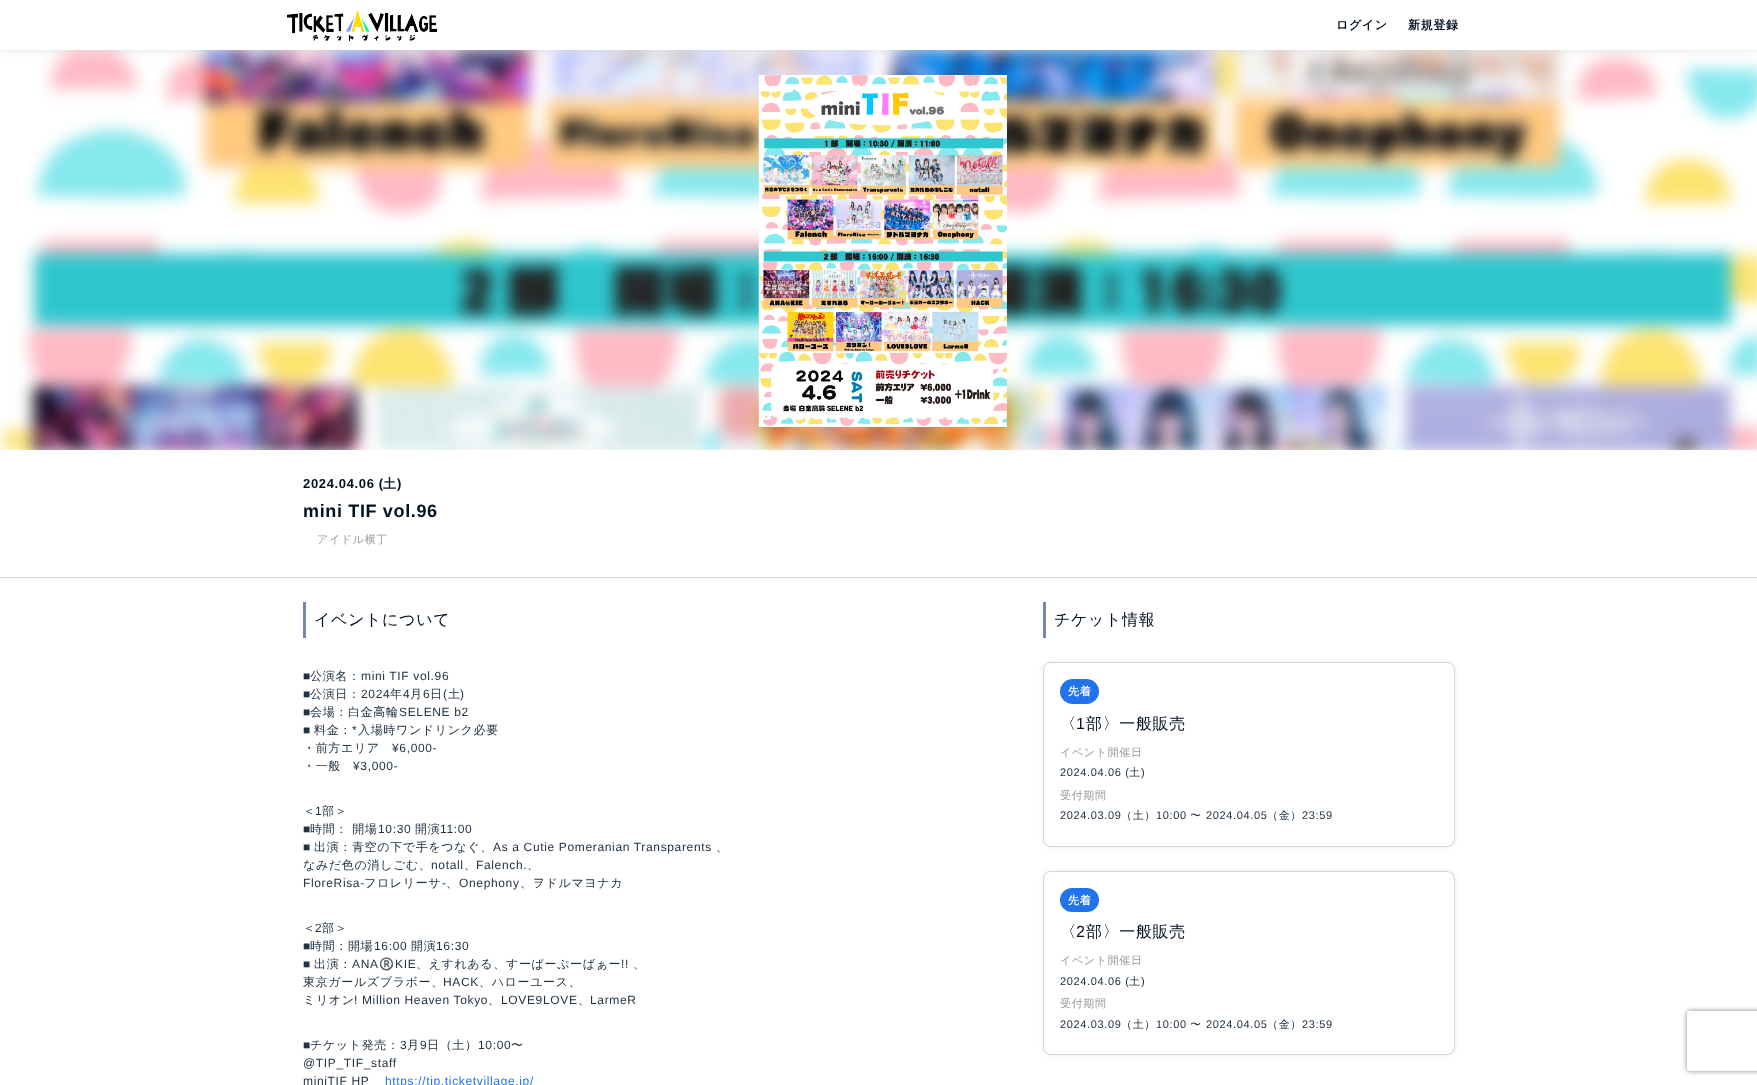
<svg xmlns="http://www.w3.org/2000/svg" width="1757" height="1085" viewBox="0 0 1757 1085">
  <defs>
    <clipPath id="clip1"><path d="M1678 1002H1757V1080H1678ZM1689 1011H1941C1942 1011 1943 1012 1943 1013V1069C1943 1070 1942 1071 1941 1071H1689C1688 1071 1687 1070 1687 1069V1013C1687 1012 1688 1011 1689 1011Z" clip-rule="evenodd"/></clipPath>
  </defs>
  <rect width="100%" height="100%" fill="#fff"/>
  <image x="0" y="50" width="1757" height="400" href="img/2.png"/>
  <path d="M0 -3h1757v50H0z" fill="#00112233" filter="blur(6px)"/>
  <path d="M0 0h1757v50H0z" fill="#fff"/>
  <image x="287" y="10" width="150" height="31" href="img/1.png"/>
  <image x="758" y="75" width="249" height="352" href="img/3.png"/>
  <path d="M0 577h1757v1H0z" fill="#d2d8dd"/>
  <path d="M303 602h3v36H303z" fill="#78a"/>
  <path d="M1043 602h3v36H1043z" fill="#78a"/>
  <rect x="1043" y="662" width="412" height="185" rx="8" fill="#00112214" filter="blur(2.5px)"/>
  <rect x="1043.5" y="662.5" width="411" height="184" rx="7.5" fill="#fff" stroke="#d2d8dd"/>
  <rect x="1060" y="679" width="39" height="25" rx="12.5" fill="#2173ea"/>
  <rect x="1043" y="871" width="412" height="184" rx="8" fill="#00112214" filter="blur(2.5px)"/>
  <rect x="1043.5" y="871.5" width="411" height="183" rx="7.5" fill="#fff" stroke="#d2d8dd"/>
  <rect x="1060" y="888" width="39" height="24" rx="12" fill="#2173ea"/>
  <g clip-path="url(#clip1)">
    <rect x="1687" y="1011" width="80" height="60" rx="2" fill="#808080" filter="blur(2.5px)"/>
  </g>
  <g font-family="WenQuanYi Zen Hei" font-size="12" font-weight="bold" letter-spacing="0.65" fill="#012">
    <text x="1336" y="29">ログイン</text>
    <text x="1408" y="29">新規登録</text>
  </g>
  <text x="303" y="488" font-family="Liberation Sans" font-size="13" font-weight="bold" letter-spacing="0.65" fill="#012">2024.04.06 (</text>
  <text x="383" y="488" font-family="WenQuanYi Zen Hei" font-size="13" font-weight="bold" letter-spacing="0.65" fill="#012">土</text>
  <text x="397" y="488" font-family="Liberation Sans" font-size="13" font-weight="bold" letter-spacing="0.65" fill="#012">)</text>
  <text x="303" y="517" font-family="Liberation Sans" font-size="18" font-weight="bold" letter-spacing="0.65" fill="#012">mini TIF vol.96</text>
  <text x="317" y="543" font-family="WenQuanYi Zen Hei" font-size="11" font-weight="500" letter-spacing="0.65" fill="#999">アイドル横丁</text>
  <text x="314" y="625" font-family="WenQuanYi Zen Hei" font-size="16" font-weight="500" letter-spacing="0.65" fill="#012">イベントについて</text>
  <text x="303" y="680" font-family="Liberation Sans" font-size="12" letter-spacing="0.65" fill="#234">■</text>
  <text x="310" y="680" font-family="WenQuanYi Zen Hei" font-size="12" font-weight="500" letter-spacing="0.65" fill="#234">公演名：</text>
  <g font-family="Liberation Sans" font-size="12" letter-spacing="0.65" fill="#234">
    <text x="361" y="680">mini TIF vol.96</text>
    <text x="303" y="698">■</text>
  </g>
  <text x="310" y="698" font-family="WenQuanYi Zen Hei" font-size="12" font-weight="500" letter-spacing="0.65" fill="#234">公演日：</text>
  <text x="361" y="698" font-family="Liberation Sans" font-size="12" letter-spacing="0.65" fill="#234">2024</text>
  <text x="390" y="698" font-family="WenQuanYi Zen Hei" font-size="12" font-weight="500" letter-spacing="0.65" fill="#234">年</text>
  <text x="403" y="698" font-family="Liberation Sans" font-size="12" letter-spacing="0.65" fill="#234">4</text>
  <text x="410" y="698" font-family="WenQuanYi Zen Hei" font-size="12" font-weight="500" letter-spacing="0.65" fill="#234">月</text>
  <text x="423" y="698" font-family="Liberation Sans" font-size="12" letter-spacing="0.65" fill="#234">6</text>
  <text x="430" y="698" font-family="WenQuanYi Zen Hei" font-size="12" font-weight="500" letter-spacing="0.65" fill="#234">日</text>
  <text x="443" y="698" font-family="Liberation Sans" font-size="12" letter-spacing="0.65" fill="#234">(</text>
  <text x="448" y="698" font-family="WenQuanYi Zen Hei" font-size="12" font-weight="500" letter-spacing="0.65" fill="#234">土</text>
  <g font-family="Liberation Sans" font-size="12" letter-spacing="0.65" fill="#234">
    <text x="460" y="698">)</text>
    <text x="303" y="716">■</text>
  </g>
  <text x="310" y="716" font-family="WenQuanYi Zen Hei" font-size="12" font-weight="500" letter-spacing="0.65" fill="#234">会場：白金高輪</text>
  <g font-family="Liberation Sans" font-size="12" letter-spacing="0.65" fill="#234">
    <text x="399" y="716">SELENE b2</text>
    <text x="303" y="734">■</text>
  </g>
  <text x="314" y="734" font-family="WenQuanYi Zen Hei" font-size="12" font-weight="500" letter-spacing="0.65" fill="#234">料金：</text>
  <text x="352" y="734" font-family="Liberation Sans" font-size="12" letter-spacing="0.65" fill="#234">*</text>
  <g font-family="WenQuanYi Zen Hei" font-size="12" font-weight="500" letter-spacing="0.65" fill="#234">
    <text x="358" y="734">入場時ワンドリンク必要</text>
    <text x="303" y="752">・前方エリア</text>
  </g>
  <text x="392" y="752" font-family="Liberation Sans" font-size="12" letter-spacing="0.65" fill="#234">¥6,000-</text>
  <text x="303" y="770" font-family="WenQuanYi Zen Hei" font-size="12" font-weight="500" letter-spacing="0.65" fill="#234">・一般</text>
  <text x="353" y="770" font-family="Liberation Sans" font-size="12" letter-spacing="0.65" fill="#234">¥3,000-</text>
  <text x="303" y="815" font-family="WenQuanYi Zen Hei" font-size="12" font-weight="500" letter-spacing="0.65" fill="#234">＜</text>
  <text x="315" y="815" font-family="Liberation Sans" font-size="12" letter-spacing="0.65" fill="#234">1</text>
  <text x="322" y="815" font-family="WenQuanYi Zen Hei" font-size="12" font-weight="500" letter-spacing="0.65" fill="#234">部＞</text>
  <text x="303" y="833" font-family="Liberation Sans" font-size="12" letter-spacing="0.65" fill="#234">■</text>
  <text x="310" y="833" font-family="WenQuanYi Zen Hei" font-size="12" font-weight="500" letter-spacing="0.65" fill="#234">時間： 開場</text>
  <text x="378" y="833" font-family="Liberation Sans" font-size="12" letter-spacing="0.65" fill="#234">10:30</text>
  <text x="415" y="833" font-family="WenQuanYi Zen Hei" font-size="12" font-weight="500" letter-spacing="0.65" fill="#234">開演</text>
  <g font-family="Liberation Sans" font-size="12" letter-spacing="0.65" fill="#234">
    <text x="440" y="833">11:00</text>
    <text x="303" y="851">■</text>
  </g>
  <text x="314" y="851" font-family="WenQuanYi Zen Hei" font-size="12" font-weight="500" letter-spacing="0.65" fill="#234">出演：青空の下で手をつなぐ、</text>
  <text x="493" y="851" font-family="Liberation Sans" font-size="12" letter-spacing="0.65" fill="#234">As a Cutie Pomeranian Transparents</text>
  <g font-family="WenQuanYi Zen Hei" font-size="12" font-weight="500" letter-spacing="0.65" fill="#234">
    <text x="716" y="851">、</text>
    <text x="303" y="869">なみだ色の消しごむ、</text>
  </g>
  <text x="431" y="869" font-family="Liberation Sans" font-size="12" letter-spacing="0.65" fill="#234">notall</text>
  <text x="464" y="869" font-family="WenQuanYi Zen Hei" font-size="12" font-weight="500" letter-spacing="0.65" fill="#234">、</text>
  <text x="476" y="869" font-family="Liberation Sans" font-size="12" letter-spacing="0.65" fill="#234">Falench.</text>
  <text x="527" y="869" font-family="WenQuanYi Zen Hei" font-size="12" font-weight="500" letter-spacing="0.65" fill="#234">、</text>
  <text x="303" y="887" font-family="Liberation Sans" font-size="12" letter-spacing="0.65" fill="#234">FloreRisa-</text>
  <text x="364" y="887" font-family="WenQuanYi Zen Hei" font-size="12" font-weight="500" letter-spacing="0.65" fill="#234">フロレリーサ</text>
  <g font-family="Liberation Sans" font-size="12" letter-spacing="0.65" fill="#234">
    <text x="442" y="887">-</text>
    <text x="459" y="887">Onephony</text>
  </g>
  <g font-family="WenQuanYi Zen Hei" font-size="12" font-weight="500" letter-spacing="0.65" fill="#234">
    <text x="520" y="887">、ヲドルマヨナカ</text>
    <text x="446" y="887">、</text>
    <text x="303" y="932">＜</text>
  </g>
  <text x="315" y="932" font-family="Liberation Sans" font-size="12" letter-spacing="0.65" fill="#234">2</text>
  <text x="322" y="932" font-family="WenQuanYi Zen Hei" font-size="12" font-weight="500" letter-spacing="0.65" fill="#234">部＞</text>
  <text x="303" y="950" font-family="Liberation Sans" font-size="12" letter-spacing="0.65" fill="#234">■</text>
  <text x="310" y="950" font-family="WenQuanYi Zen Hei" font-size="12" font-weight="500" letter-spacing="0.65" fill="#234">時間：開場</text>
  <text x="374" y="950" font-family="Liberation Sans" font-size="12" letter-spacing="0.65" fill="#234">16:00</text>
  <text x="411" y="950" font-family="WenQuanYi Zen Hei" font-size="12" font-weight="500" letter-spacing="0.65" fill="#234">開演</text>
  <g font-family="Liberation Sans" font-size="12" letter-spacing="0.65" fill="#234">
    <text x="436" y="950">16:30</text>
    <text x="303" y="968">■</text>
  </g>
  <text x="314" y="968" font-family="WenQuanYi Zen Hei" font-size="12" font-weight="500" letter-spacing="0.65" fill="#234">出演：</text>
  <text x="352" y="968" font-family="Liberation Sans" font-size="12" letter-spacing="0.65" fill="#234">ANA</text>
  <text x="379" y="968" font-family="Noto Color Emoji" font-size="12" letter-spacing="0.65" fill="#234">®️</text>
  <text x="395" y="968" font-family="Liberation Sans" font-size="12" letter-spacing="0.65" fill="#234">KIE</text>
  <text x="416" y="968" font-family="WenQuanYi Zen Hei" font-size="12" font-weight="500" letter-spacing="0.65" fill="#234">、えすれある、すーぱーぷーばぁー</text>
  <text x="621" y="968" font-family="Liberation Sans" font-size="12" letter-spacing="0.65" fill="#234">!!</text>
  <g font-family="WenQuanYi Zen Hei" font-size="12" font-weight="500" letter-spacing="0.65" fill="#234">
    <text x="633" y="968">、</text>
    <text x="303" y="986">東京ガールズブラボー、</text>
  </g>
  <text x="443" y="986" font-family="Liberation Sans" font-size="12" letter-spacing="0.65" fill="#234">HACK</text>
  <g font-family="WenQuanYi Zen Hei" font-size="12" font-weight="500" letter-spacing="0.65" fill="#234">
    <text x="479" y="986">、ハローユース、</text>
    <text x="303" y="1004">ミリオン</text>
  </g>
  <text x="354" y="1004" font-family="Liberation Sans" font-size="12" letter-spacing="0.65" fill="#234">! Million Heaven Tokyo</text>
  <text x="488" y="1004" font-family="WenQuanYi Zen Hei" font-size="12" font-weight="500" letter-spacing="0.65" fill="#234">、</text>
  <text x="501" y="1004" font-family="Liberation Sans" font-size="12" letter-spacing="0.65" fill="#234">LOVE9LOVE</text>
  <text x="578" y="1004" font-family="WenQuanYi Zen Hei" font-size="12" font-weight="500" letter-spacing="0.65" fill="#234">、</text>
  <g font-family="Liberation Sans" font-size="12" letter-spacing="0.65" fill="#234">
    <text x="590" y="1004">LarmeR</text>
    <text x="303" y="1049">■</text>
  </g>
  <text x="310" y="1049" font-family="WenQuanYi Zen Hei" font-size="12" font-weight="500" letter-spacing="0.65" fill="#234">チケット発売：</text>
  <text x="400" y="1049" font-family="Liberation Sans" font-size="12" letter-spacing="0.65" fill="#234">3</text>
  <text x="407" y="1049" font-family="WenQuanYi Zen Hei" font-size="12" font-weight="500" letter-spacing="0.65" fill="#234">月</text>
  <text x="420" y="1049" font-family="Liberation Sans" font-size="12" letter-spacing="0.65" fill="#234">9</text>
  <text x="427" y="1049" font-family="WenQuanYi Zen Hei" font-size="12" font-weight="500" letter-spacing="0.65" fill="#234">日（土）</text>
  <text x="478" y="1049" font-family="Liberation Sans" font-size="12" letter-spacing="0.65" fill="#234">10:00</text>
  <text x="511" y="1049" font-family="WenQuanYi Zen Hei" font-size="12" font-weight="500" letter-spacing="0.65" fill="#234">〜</text>
  <g font-family="Liberation Sans" font-size="12" letter-spacing="0.65" fill="#234">
    <text x="303" y="1067">@TIP_TIF_staff</text>
    <text x="303" y="1085">miniTIF HP</text>
  </g>
  <text x="385" y="1085" font-family="Liberation Sans" font-size="12" letter-spacing="0.65" fill="#2173ea">https://tip.ticketvillage.jp/</text>
  <text x="1054" y="625" font-family="WenQuanYi Zen Hei" font-size="16" font-weight="500" letter-spacing="0.65" fill="#012">チケット情報</text>
  <text x="1068" y="695" font-family="WenQuanYi Zen Hei" font-size="11" font-weight="bold" letter-spacing="0.65" fill="#fff">先着</text>
  <text x="1060" y="729" font-family="WenQuanYi Zen Hei" font-size="16" font-weight="500" letter-spacing="0.65" fill="#012">〈</text>
  <text x="1076" y="729" font-family="Liberation Sans" font-size="16" letter-spacing="0.65" fill="#012">1</text>
  <text x="1086" y="729" font-family="WenQuanYi Zen Hei" font-size="16" font-weight="500" letter-spacing="0.65" fill="#012">部〉一般販売</text>
  <text x="1060" y="756" font-family="WenQuanYi Zen Hei" font-size="11" font-weight="500" letter-spacing="0.65" fill="#999">イベント開催日</text>
  <text x="1060" y="776" font-family="Liberation Sans" font-size="11" letter-spacing="0.65" fill="#234">2024.04.06 (</text>
  <text x="1129" y="776" font-family="WenQuanYi Zen Hei" font-size="11" font-weight="500" letter-spacing="0.65" fill="#234">土</text>
  <text x="1141" y="776" font-family="Liberation Sans" font-size="11" letter-spacing="0.65" fill="#234">)</text>
  <text x="1060" y="799" font-family="WenQuanYi Zen Hei" font-size="11" font-weight="500" letter-spacing="0.65" fill="#999">受付期間</text>
  <text x="1060" y="819" font-family="Liberation Sans" font-size="11" letter-spacing="0.65" fill="#234">2024.03.09</text>
  <text x="1121" y="819" font-family="WenQuanYi Zen Hei" font-size="11" font-weight="500" letter-spacing="0.65" fill="#234">（土）</text>
  <text x="1156" y="819" font-family="Liberation Sans" font-size="11" letter-spacing="0.65" fill="#234">10:00</text>
  <text x="1190" y="819" font-family="WenQuanYi Zen Hei" font-size="11" font-weight="500" letter-spacing="0.65" fill="#234">〜</text>
  <text x="1206" y="819" font-family="Liberation Sans" font-size="11" letter-spacing="0.65" fill="#234">2024.04.05</text>
  <text x="1267" y="819" font-family="WenQuanYi Zen Hei" font-size="11" font-weight="500" letter-spacing="0.65" fill="#234">（金）</text>
  <text x="1302" y="819" font-family="Liberation Sans" font-size="11" letter-spacing="0.65" fill="#234">23:59</text>
  <text x="1068" y="904" font-family="WenQuanYi Zen Hei" font-size="11" font-weight="bold" letter-spacing="0.65" fill="#fff">先着</text>
  <text x="1060" y="937" font-family="WenQuanYi Zen Hei" font-size="16" font-weight="500" letter-spacing="0.65" fill="#012">〈</text>
  <text x="1076" y="937" font-family="Liberation Sans" font-size="16" letter-spacing="0.65" fill="#012">2</text>
  <text x="1086" y="937" font-family="WenQuanYi Zen Hei" font-size="16" font-weight="500" letter-spacing="0.65" fill="#012">部〉一般販売</text>
  <text x="1060" y="964" font-family="WenQuanYi Zen Hei" font-size="11" font-weight="500" letter-spacing="0.65" fill="#999">イベント開催日</text>
  <text x="1060" y="985" font-family="Liberation Sans" font-size="11" letter-spacing="0.65" fill="#234">2024.04.06 (</text>
  <text x="1129" y="985" font-family="WenQuanYi Zen Hei" font-size="11" font-weight="500" letter-spacing="0.65" fill="#234">土</text>
  <text x="1141" y="985" font-family="Liberation Sans" font-size="11" letter-spacing="0.65" fill="#234">)</text>
  <text x="1060" y="1007" font-family="WenQuanYi Zen Hei" font-size="11" font-weight="500" letter-spacing="0.65" fill="#999">受付期間</text>
  <text x="1060" y="1028" font-family="Liberation Sans" font-size="11" letter-spacing="0.65" fill="#234">2024.03.09</text>
  <text x="1121" y="1028" font-family="WenQuanYi Zen Hei" font-size="11" font-weight="500" letter-spacing="0.65" fill="#234">（土）</text>
  <text x="1156" y="1028" font-family="Liberation Sans" font-size="11" letter-spacing="0.65" fill="#234">10:00</text>
  <text x="1190" y="1028" font-family="WenQuanYi Zen Hei" font-size="11" font-weight="500" letter-spacing="0.65" fill="#234">〜</text>
  <text x="1206" y="1028" font-family="Liberation Sans" font-size="11" letter-spacing="0.65" fill="#234">2024.04.05</text>
  <text x="1267" y="1028" font-family="WenQuanYi Zen Hei" font-size="11" font-weight="500" letter-spacing="0.65" fill="#234">（金）</text>
  <text x="1302" y="1028" font-family="Liberation Sans" font-size="11" letter-spacing="0.65" fill="#234">23:59</text>
</svg>
